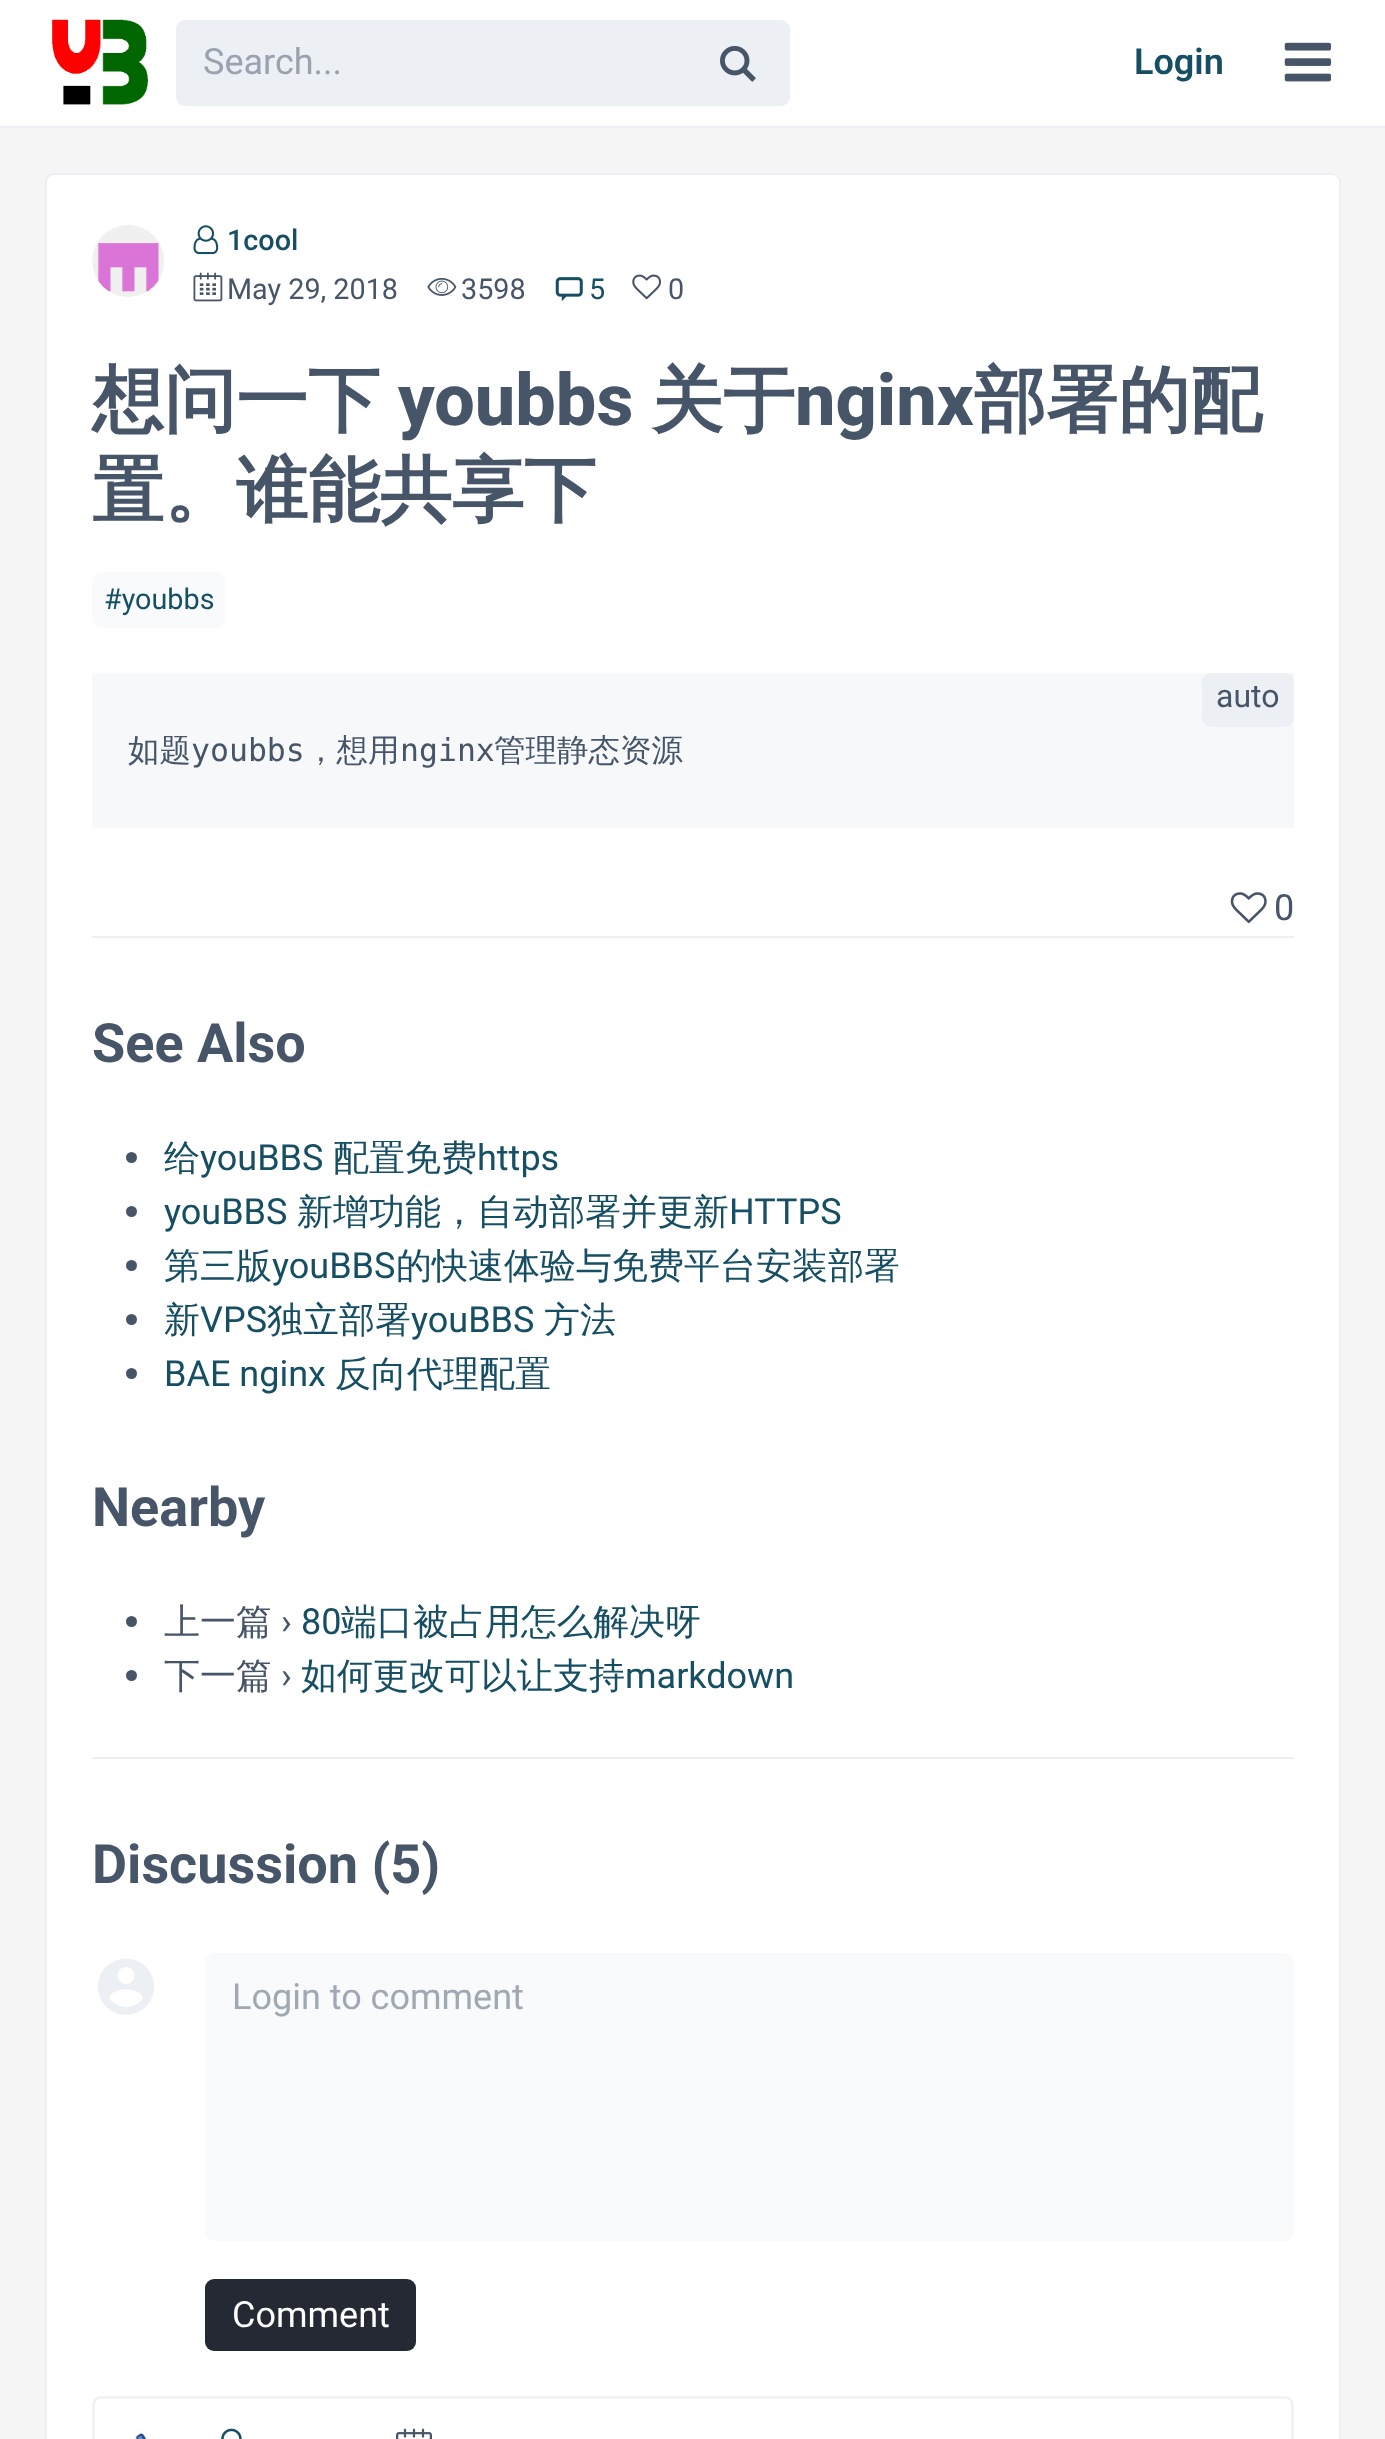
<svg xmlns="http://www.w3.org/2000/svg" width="1385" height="2439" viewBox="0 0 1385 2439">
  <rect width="100%" height="100%" fill="#f5f5f5"/>
  <path d="M0 0h1385v126H0z" fill="#fff"/>
  <path d="M0 126h1385v2H0z" fill="#eceff4"/>
  <image x="52" y="19" width="96" height="86" href="img/1.png"/>
  <rect x="176" y="20" width="614" height="86" rx="9" fill="#eceff4"/>
  <image x="720" y="45" width="36" height="37" href="img/2.png"/>
  <image x="1284" y="42" width="48" height="40" href="img/3.png"/>
  <rect x="46" y="174" width="1294" height="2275" rx="8" fill="#fff" stroke="#eceff4" stroke-width="2"/>
  <image x="92" y="225" width="72" height="72" href="img/4.png"/>
  <image x="193" y="225" width="26" height="30" href="img/5.png"/>
  <image x="193" y="272" width="30" height="30" href="img/6.png"/>
  <image x="427" y="277" width="30" height="19" href="img/7.png"/>
  <image x="555" y="277" width="28" height="24" href="img/8.png"/>
  <image x="632" y="274" width="29" height="26" href="img/9.png"/>
  <rect x="92" y="572" width="133" height="56" rx="9" fill="#f8fafc"/>
  <path d="M92 673h1202v155H92z" fill="#f6f8fa"/>
  <rect x="1202" y="673" width="92" height="54" rx="9" fill="#eceff4"/>
  <image x="1230" y="892" width="37" height="32" href="img/10.png"/>
  <path d="M92 936h1202v2H92z" fill="#eceff4"/>
  <circle cx="131.5" cy="1157.5" r="5.5" fill="#475569"/>
  <circle cx="131.5" cy="1211.5" r="5.5" fill="#475569"/>
  <circle cx="131.5" cy="1265.5" r="5.5" fill="#475569"/>
  <circle cx="131.5" cy="1319.5" r="5.5" fill="#475569"/>
  <circle cx="131.5" cy="1373.5" r="5.5" fill="#475569"/>
  <circle cx="131.5" cy="1621.5" r="5.5" fill="#475569"/>
  <circle cx="131.5" cy="1675.5" r="5.5" fill="#475569"/>
  <path d="M92 1757h1202v2H92z" fill="#eceff4"/>
  <image x="98" y="1958" width="56" height="57" href="img/11.png"/>
  <rect x="205" y="1953" width="1089" height="288" rx="9" fill="#f8fafc"/>
  <rect x="205" y="2279" width="211" height="72" rx="9" fill="#242933"/>
  <path d="M95.5 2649.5C94 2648 93.5 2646 93.5 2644V2405C93.5 2403 94 2401 95.5 2399.5C97 2398 99 2397.5 101 2397.5H1285C1287 2397.5 1289 2398 1290.5 2399.5C1292 2401 1292.5 2403 1292.5 2405V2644C1292.5 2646 1292 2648 1290.5 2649.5" fill="none" stroke="#eceff4" stroke-width="2.2"/>
  <image x="132" y="2429" width="15" height="10" href="img/12.png"/>
  <image x="221" y="2428" width="21" height="11" href="img/13.png"/>
  <image x="396" y="2428" width="36" height="11" href="img/14.png"/>
  <text x="203" y="74" font-family="Roboto" font-size="36" fill="#9aa2af">Search...</text>
  <text x="1134" y="74" font-family="Roboto" font-size="36" font-weight="600" fill="#164e63">Login</text>
  <text x="227" y="250" font-family="Roboto" font-size="28.75" font-weight="500" fill="#164e63">1cool</text>
  <g font-family="Roboto" font-size="28.75" fill="#475569">
    <text x="227" y="299">May 29, 2018</text>
    <text x="461" y="299">3598</text>
  </g>
  <text x="589" y="299" font-family="Roboto" font-size="28.75" fill="#164e63">5</text>
  <text x="668" y="299" font-family="Roboto" font-size="28.75" fill="#475569">0</text>
  <text x="92" y="425" font-family="WenQuanYi Zen Hei" font-size="72" font-weight="bold" fill="#475569">想问一下</text>
  <text x="398" y="425" font-family="Roboto" font-size="72" font-weight="800" fill="#475569">youbbs</text>
  <text x="651" y="425" font-family="WenQuanYi Zen Hei" font-size="72" font-weight="bold" fill="#475569">关于</text>
  <text x="795" y="425" font-family="Roboto" font-size="72" font-weight="800" fill="#475569">nginx</text>
  <g font-family="WenQuanYi Zen Hei" font-size="72" font-weight="bold" fill="#475569">
    <text x="974" y="425">部署的配</text>
    <text x="92" y="515">置。谁能共享下</text>
  </g>
  <text x="104" y="609" font-family="Roboto" font-size="28.75" fill="#164e63">#youbbs</text>
  <text x="1216" y="707" font-family="Roboto" font-size="32" fill="#475569">auto</text>
  <text x="128" y="761" font-family="WenQuanYi Zen Hei" font-size="31.5" font-weight="500" fill="#475569">如题</text>
  <text x="191" y="761" font-family="DejaVu Sans Mono" font-size="31.5" fill="#475569">youbbs</text>
  <text x="305" y="761" font-family="WenQuanYi Zen Hei" font-size="31.5" font-weight="500" fill="#475569">，想用</text>
  <text x="400" y="761" font-family="DejaVu Sans Mono" font-size="31.5" fill="#475569">nginx</text>
  <text x="494" y="761" font-family="WenQuanYi Zen Hei" font-size="31.5" font-weight="500" fill="#475569">管理静态资源</text>
  <text x="1274" y="920" font-family="Roboto" font-size="36" fill="#475569">0</text>
  <text x="92" y="1062" font-family="Roboto" font-size="54" font-weight="bold" fill="#475569">See Also</text>
  <text x="164" y="1170" font-family="WenQuanYi Zen Hei" font-size="36" font-weight="500" fill="#164e63">给</text>
  <text x="200" y="1170" font-family="Roboto" font-size="36" fill="#164e63">youBBS</text>
  <text x="333" y="1170" font-family="WenQuanYi Zen Hei" font-size="36" font-weight="500" fill="#164e63">配置免费</text>
  <g font-family="Roboto" font-size="36" fill="#164e63">
    <text x="477" y="1170">https</text>
    <text x="164" y="1224">youBBS</text>
  </g>
  <text x="297" y="1224" font-family="WenQuanYi Zen Hei" font-size="36" font-weight="500" fill="#164e63">新增功能，自动部署并更新</text>
  <text x="729" y="1224" font-family="Roboto" font-size="36" fill="#164e63">HTTPS</text>
  <text x="164" y="1278" font-family="WenQuanYi Zen Hei" font-size="36" font-weight="500" fill="#164e63">第三版</text>
  <text x="272" y="1278" font-family="Roboto" font-size="36" fill="#164e63">youBBS</text>
  <g font-family="WenQuanYi Zen Hei" font-size="36" font-weight="500" fill="#164e63">
    <text x="396" y="1278">的快速体验与免费平台安装部署</text>
    <text x="164" y="1332">新</text>
  </g>
  <text x="200" y="1332" font-family="Roboto" font-size="36" fill="#164e63">VPS</text>
  <text x="267" y="1332" font-family="WenQuanYi Zen Hei" font-size="36" font-weight="500" fill="#164e63">独立部署</text>
  <text x="411" y="1332" font-family="Roboto" font-size="36" fill="#164e63">youBBS</text>
  <text x="544" y="1332" font-family="WenQuanYi Zen Hei" font-size="36" font-weight="500" fill="#164e63">方法</text>
  <text x="164" y="1386" font-family="Roboto" font-size="36" fill="#164e63">BAE nginx</text>
  <text x="335" y="1386" font-family="WenQuanYi Zen Hei" font-size="36" font-weight="500" fill="#164e63">反向代理配置</text>
  <text x="92" y="1526" font-family="Roboto" font-size="54" font-weight="bold" fill="#475569">Nearby</text>
  <text x="164" y="1634" font-family="WenQuanYi Zen Hei" font-size="36" font-weight="500" fill="#475569">上一篇</text>
  <text x="281" y="1634" font-family="Roboto" font-size="36" fill="#475569">›</text>
  <text x="301" y="1634" font-family="Roboto" font-size="36" fill="#164e63">80</text>
  <text x="341" y="1634" font-family="WenQuanYi Zen Hei" font-size="36" font-weight="500" fill="#164e63">端口被占用怎么解决呀</text>
  <text x="164" y="1688" font-family="WenQuanYi Zen Hei" font-size="36" font-weight="500" fill="#475569">下一篇</text>
  <text x="281" y="1688" font-family="Roboto" font-size="36" fill="#475569">›</text>
  <text x="301" y="1688" font-family="WenQuanYi Zen Hei" font-size="36" font-weight="500" fill="#164e63">如何更改可以让支持</text>
  <text x="625" y="1688" font-family="Roboto" font-size="36" fill="#164e63">markdown</text>
  <text x="92" y="1883" font-family="Roboto" font-size="54" font-weight="bold" fill="#475569">Discussion (5)</text>
  <text x="232" y="2009" font-family="Roboto" font-size="36" fill="#a0a8b3">Login to comment</text>
  <text x="232" y="2327" font-family="Roboto" font-size="36" fill="#fff">Comment</text>
</svg>
